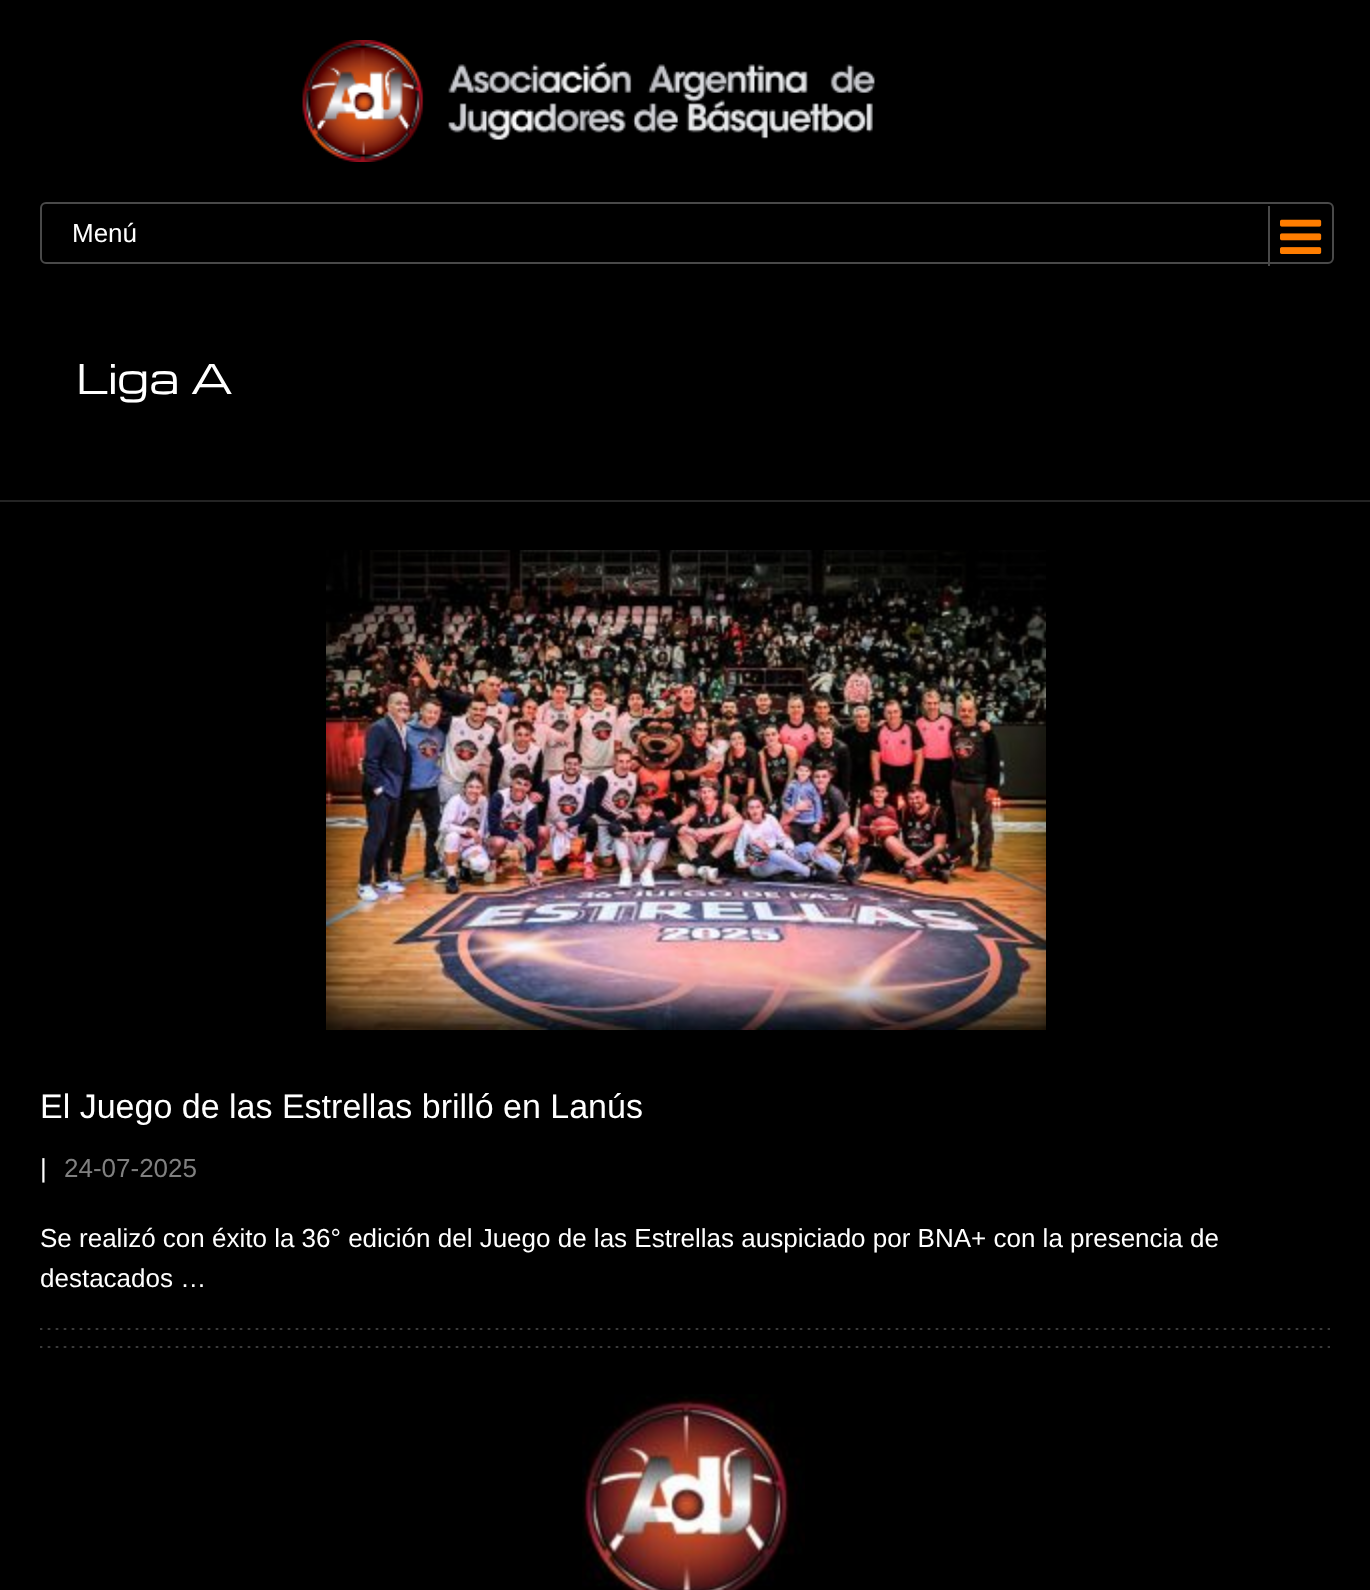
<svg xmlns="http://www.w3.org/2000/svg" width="1370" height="1590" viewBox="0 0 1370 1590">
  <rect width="100%" height="100%" fill="#000"/>
  <image x="302" y="40" width="573" height="122" href="img/1.png"/>
  <rect x="41" y="203" width="1292" height="60" rx="5" fill="none" stroke="#494949" stroke-width="2"/>
  <path d="M1268 206h2v60H1268z" fill="#494949"/>
  <image x="1280" y="219" width="42" height="35" href="img/2.png"/>
  <path d="M0 500h1370v2H0z" fill="#242424"/>
  <image x="326" y="550" width="720" height="480" href="img/3.png"/>
  <image x="40" y="1346" width="1290" height="2" href="img/4.png"/>
  <image x="40" y="1328" width="1290" height="2" href="img/4.png"/>
  <image x="582" y="1394" width="223" height="196" href="img/5.png"/>
  <text x="72" y="242" font-family="Liberation Sans" font-size="26" fill="#fff">Menú</text>
  <text x="76" y="394" font-family="Michroma" font-size="40" fill="#fff">Liga A</text>
  <text x="40" y="1118" font-family="Liberation Sans" font-size="34" fill="#fff">El Juego de las Estrellas brilló en Lanús</text>
  <text x="40" y="1177" font-family="Liberation Sans" font-size="26" fill="#fff">|</text>
  <text x="64" y="1177" font-family="Liberation Sans" font-size="26" fill="#808080">24-07-2025</text>
  <g font-family="Liberation Sans" font-size="26" fill="#fff">
    <text x="40" y="1247">Se realizó con éxito la 36° edición del Juego de las Estrellas auspiciado por BNA+ con la presencia de</text>
    <text x="40" y="1287">destacados …</text>
  </g>
</svg>
